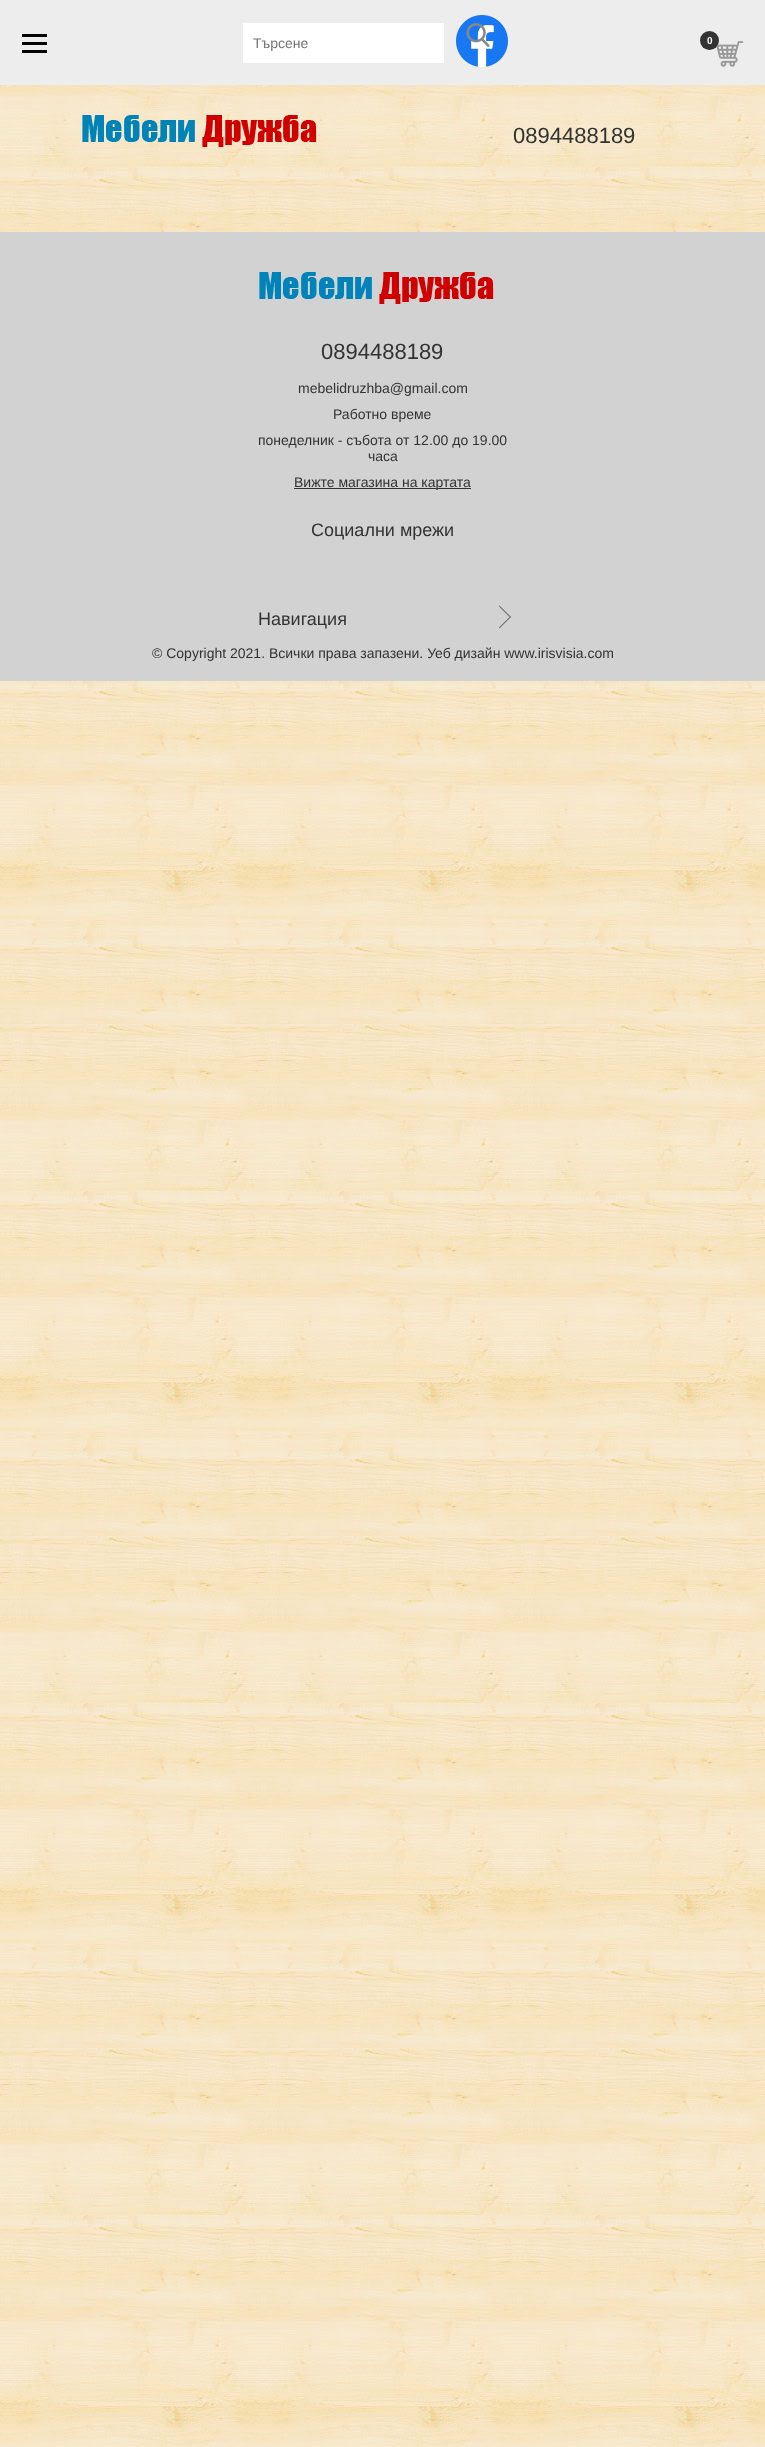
<svg xmlns="http://www.w3.org/2000/svg" width="765" height="2447" viewBox="0 0 765 2447">
  <rect width="100%" height="100%" fill="#fff"/>
  <image x="0" y="85" width="765" height="2362" href="img/1.png"/>
  <path d="M0 0h765v85H0z" fill="#ededed"/>
  <path d="M22 42h25v3H22z" fill="#000"/>
  <path d="M22 34h25v3H22z" fill="#000"/>
  <path d="M22 50h25v3H22z" fill="#000"/>
  <image x="456" y="15" width="52" height="52" href="img/2.png"/>
  <path d="M243 23h201v40H243z" fill="#fff"/>
  <image x="466" y="23" width="24" height="24" href="img/3.png"/>
  <image x="716" y="41" width="28" height="26" href="img/4.png"/>
  <circle cx="709.5" cy="40.5" r="9.5" fill="#333"/>
  <image x="82" y="115" width="235" height="32" href="img/5.png"/>
  <path d="M0 232h765v449H0z" fill="#d2d2d2"/>
  <image x="259" y="272" width="235" height="32" href="img/6.png"/>
  <path d="M294 488h177v1H294z" fill="#333"/>
  <path d="M499.5 605.5L511 617L510 617.5L499 606.5Z" fill="#6f6e6e"/>
  <path d="M510 616.5L511 617L499.5 628.5L499 627.5Z" fill="#6f6e6e"/>
  <text x="253" y="48" font-family="Liberation Sans" font-size="14" fill="#757575">Търсене</text>
  <text x="707" y="44" font-family="Liberation Sans" font-size="10" font-weight="bold" fill="#fff">0</text>
  <g font-family="Liberation Sans" font-size="22" fill="#333">
    <text x="513" y="143">0894488189</text>
    <text x="321" y="359">0894488189</text>
  </g>
  <g font-family="Liberation Sans" font-size="14" fill="#333">
    <text x="298" y="393">mebelidruzhba@gmail.com</text>
    <text x="333" y="419">Работно време</text>
    <text x="258" y="445">понеделник - събота от 12.00 до 19.00</text>
    <text x="368" y="461">часа</text>
    <text x="294" y="487">Вижте магазина на картата</text>
  </g>
  <g font-family="Liberation Sans" font-size="18" fill="#333">
    <text x="311" y="536">Социални мрежи</text>
    <text x="258" y="625">Навигация</text>
  </g>
  <text x="152" y="658" font-family="Liberation Sans" font-size="14" fill="#333">© Copyright 2021. Всички права запазени. Уеб дизайн www.irisvisia.com</text>
</svg>
